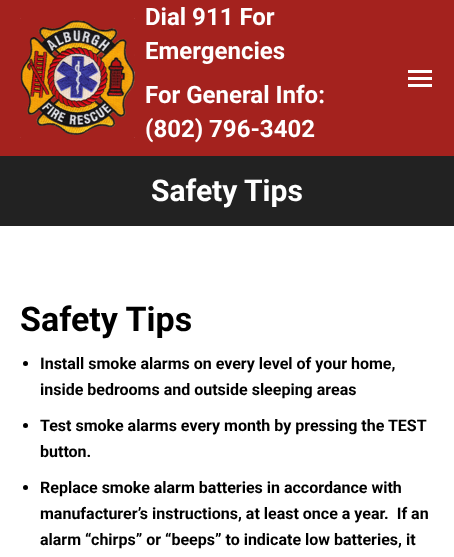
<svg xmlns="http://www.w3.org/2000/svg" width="454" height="557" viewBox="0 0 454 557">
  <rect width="100%" height="100%" fill="#fff"/>
  <path d="M0 0h454v156H0z" fill="#a4221e"/>
  <image x="20" y="18" width="115" height="120" href="img/1.png"/>
  <path d="M408 70h24v3H408z" fill="#fff"/>
  <path d="M408 77h24v3H408z" fill="#fff"/>
  <path d="M408 84h24v3H408z" fill="#fff"/>
  <path d="M0 156h454v70H0z" fill="#222"/>
  <circle cx="25.5" cy="363.5" r="2.5" fill="#000"/>
  <circle cx="25.5" cy="425.5" r="2.5" fill="#000"/>
  <circle cx="25.5" cy="487.5" r="2.5" fill="#000"/>
  <g font-family="Roboto" font-size="24" font-weight="bold" fill="#fff">
    <text x="145" y="25">Dial 911 For</text>
    <text x="145" y="59">Emergencies</text>
    <text x="145" y="103">For General Info:</text>
    <text x="145" y="137">(802) 796-3402</text>
  </g>
  <text x="151" y="201" font-family="Roboto" font-size="30" font-weight="bold" fill="#fff">Safety Tips</text>
  <text x="20" y="331" font-family="Roboto" font-size="34" font-weight="bold" fill="#000">Safety Tips</text>
  <g font-family="Roboto" font-size="16" font-weight="bold" fill="#000">
    <text x="40" y="369">Install smoke alarms on every level of your home,</text>
    <text x="40" y="395">inside bedrooms and outside sleeping areas</text>
    <text x="40" y="431">Test smoke alarms every month by pressing the TEST</text>
    <text x="40" y="457">button.</text>
    <text x="40" y="493">Replace smoke alarm batteries in accordance with</text>
    <text x="40" y="519" xml:space="preserve">manufacturer’s instructions, at least once a year.  If an</text>
    <text x="40" y="545">alarm “chirps” or “beeps” to indicate low batteries, it</text>
  </g>
</svg>
